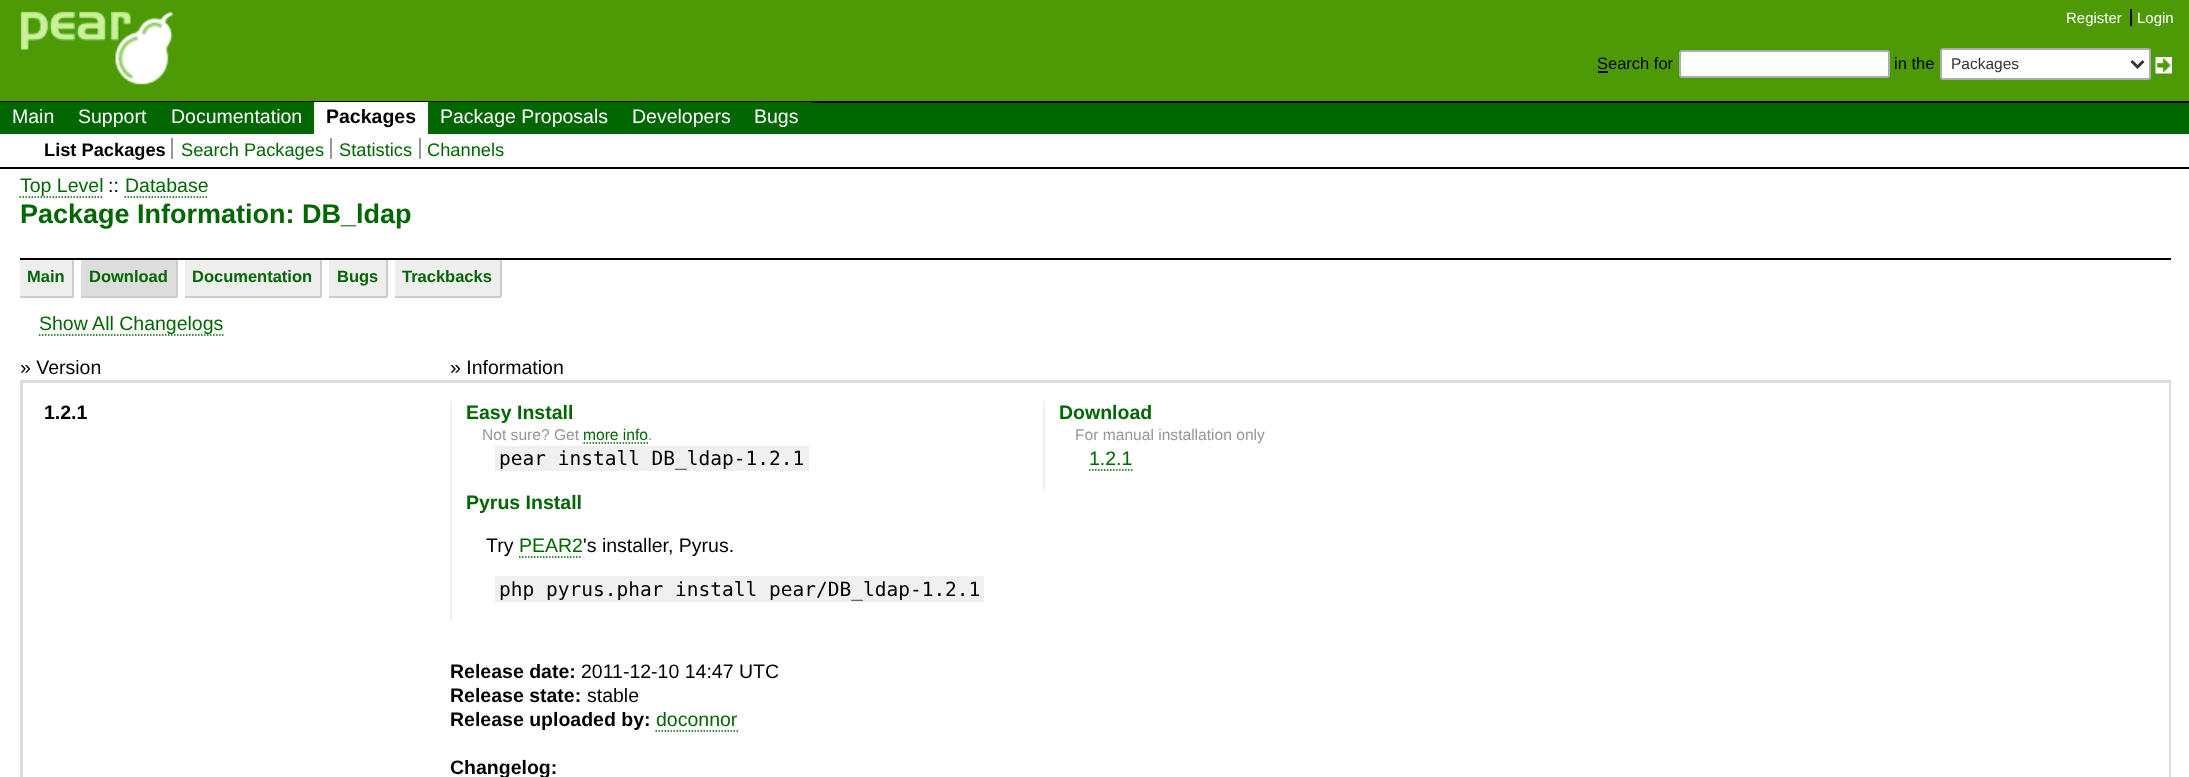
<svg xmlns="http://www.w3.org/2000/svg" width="2189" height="777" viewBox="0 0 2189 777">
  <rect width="100%" height="100%" fill="#fff"/>
  <path d="M0 0h2189v101H0z" fill="#4e9a06"/>
  <image x="20" y="11" width="153" height="74" href="img/1.png"/>
  <path d="M2130 9h2v17H2130z" fill="#000"/>
  <path d="M1598 71h10v2H1598z" fill="#000"/>
  <rect x="1680" y="51" width="209" height="26" rx="2" fill="#fff" stroke="#abadb3" stroke-width="2"/>
  <rect x="1941" y="49" width="209" height="30" rx="2" fill="#fff" stroke="#abadb3" stroke-width="2"/>
  <path d="M2131.5 61L2137.5 67L2143.5 61" fill="none" stroke="#333" stroke-width="3"/>
  <image x="2155" y="57" width="17" height="17" href="img/2.png"/>
  <path d="M812 103h1377v31H812z" fill="#060"/>
  <path d="M0 101h2189v2H0z" fill="#000"/>
  <path d="M0 102h314v32H0z" fill="#060"/>
  <path d="M314 102h114v1H314z" fill="#fff"/>
  <path d="M428 102h384v32H428z" fill="#060"/>
  <path d="M0 167h2189v2H0z" fill="#000"/>
  <path d="M171 138h2v21H171z" fill="#999"/>
  <path d="M330 138h2v21H330z" fill="#999"/>
  <path d="M419 138h2v21H419z" fill="#999"/>
  <path d="M19.5 197H103.5" fill="none" stroke="#060" stroke-width="1.5" stroke-dasharray="1.5 1.5"/>
  <path d="M124.5 197H208.5" fill="none" stroke="#060" stroke-width="1.5" stroke-dasharray="1.5 1.5"/>
  <path d="M20 258h2151v2H20z" fill="#000"/>
  <path d="M20 260h52v36H20z" fill="#eee"/>
  <path d="M72 260h2v37H72z" fill="#ccc"/>
  <path d="M20 296h54v2H20z" fill="#ccc"/>
  <path d="M81 260h95v36H81z" fill="#ddd"/>
  <path d="M176 260h2v37H176z" fill="#ccc"/>
  <path d="M81 296h96v2H81z" fill="#ccc"/>
  <path d="M185 260h135v36H185z" fill="#eee"/>
  <path d="M320 260h2v37H320z" fill="#ccc"/>
  <path d="M185 296h136v2H185z" fill="#ccc"/>
  <path d="M329 260h57v36H329z" fill="#eee"/>
  <path d="M386 260h2v37H386z" fill="#ccc"/>
  <path d="M329 296h58v2H329z" fill="#ccc"/>
  <path d="M395 260h105v36H395z" fill="#eee"/>
  <path d="M500 260h2v37H500z" fill="#ccc"/>
  <path d="M395 296h106v2H395z" fill="#ccc"/>
  <path d="M39 335H223.5" fill="none" stroke="#060" stroke-width="1.5" stroke-dasharray="1.5 1.5"/>
  <path d="M22 382h2148v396H22z" fill="none" stroke="#dcdcdc" stroke-width="2"/>
  <path d="M20 380h2151v2H20z" fill="#dcdcdc"/>
  <path d="M20 380h1v397H20z" fill="#dcdcdc"/>
  <path d="M450 401h2v220H450z" fill="#f0f0f0"/>
  <path d="M583.5 443H648" fill="none" stroke="#060" stroke-width="1.5" stroke-dasharray="1.5 1.5"/>
  <path d="M495 446h314v25H495z" fill="#f0f0f0"/>
  <path d="M519 557H582" fill="none" stroke="#060" stroke-width="1.5" stroke-dasharray="1.5 1.5"/>
  <path d="M495 576h489v26H495z" fill="#f0f0f0"/>
  <path d="M1043 401h2v90H1043z" fill="#f0f0f0"/>
  <path d="M1089 470H1132.5" fill="none" stroke="#060" stroke-width="1.5" stroke-dasharray="1.5 1.5"/>
  <path d="M655.5 731H738" fill="none" stroke="#060" stroke-width="1.5" stroke-dasharray="1.5 1.5"/>
  <g font-family="Liberation Sans" font-size="15" fill="#fff">
    <text x="2066" y="23">Register</text>
    <text x="2137" y="23">Login</text>
  </g>
  <g font-family="Liberation Sans" font-size="16.5" fill="#000">
    <text x="1597" y="69">Search for</text>
    <text x="1894" y="69">in the</text>
  </g>
  <text x="1951" y="69" font-family="Liberation Sans" font-size="15.5" fill="#333">Packages</text>
  <g font-family="Liberation Sans" font-size="19.5" fill="#fff">
    <text x="12" y="123">Main</text>
    <text x="78" y="123">Support</text>
    <text x="171" y="123">Documentation</text>
  </g>
  <text x="326" y="123" font-family="Liberation Sans" font-size="19.5" font-weight="bold" fill="#000">Packages</text>
  <g font-family="Liberation Sans" font-size="19.5" fill="#fff">
    <text x="440" y="123">Package Proposals</text>
    <text x="632" y="123">Developers</text>
    <text x="754" y="123">Bugs</text>
  </g>
  <text x="44" y="156" font-family="Liberation Sans" font-size="18.25" font-weight="bold" fill="#000">List Packages</text>
  <g font-family="Liberation Sans" font-size="18.25" fill="#060">
    <text x="181" y="156">Search Packages</text>
    <text x="339" y="156">Statistics</text>
    <text x="427" y="156">Channels</text>
  </g>
  <text x="20" y="192" font-family="Liberation Sans" font-size="19.5" fill="#060">Top Level</text>
  <text x="108" y="192" font-family="Liberation Sans" font-size="19.5" fill="#000">::</text>
  <text x="125" y="192" font-family="Liberation Sans" font-size="19.5" fill="#060">Database</text>
  <text x="20" y="223" font-family="Liberation Sans" font-size="27" font-weight="bold" fill="#060">Package Information: DB_ldap</text>
  <g font-family="Liberation Sans" font-size="16.5" font-weight="bold" fill="#060">
    <text x="27" y="282">Main</text>
    <text x="89" y="282">Download</text>
    <text x="192" y="282">Documentation</text>
    <text x="337" y="282">Bugs</text>
    <text x="402" y="282">Trackbacks</text>
  </g>
  <text x="39" y="330" font-family="Liberation Sans" font-size="19.5" fill="#060">Show All Changelogs</text>
  <g font-family="Liberation Sans" font-size="19.5" fill="#000">
    <text x="20" y="374">» Version</text>
    <text x="450" y="374">» Information</text>
  </g>
  <text x="44" y="419" font-family="Liberation Sans" font-size="19.5" font-weight="bold" fill="#000">1.2.1</text>
  <text x="466" y="419" font-family="Liberation Sans" font-size="19.5" font-weight="bold" fill="#060">Easy Install</text>
  <text x="482" y="440" font-family="Liberation Sans" font-size="15.6" fill="#969696">Not sure? Get</text>
  <text x="583" y="440" font-family="Liberation Sans" font-size="15.6" fill="#060">more info</text>
  <text x="648" y="440" font-family="Liberation Sans" font-size="15.6" fill="#969696">.</text>
  <text x="499" y="465" font-family="DejaVu Sans Mono" font-size="19.5" fill="#000">pear install DB_ldap-1.2.1</text>
  <text x="466" y="509" font-family="Liberation Sans" font-size="19.5" font-weight="bold" fill="#060">Pyrus Install</text>
  <text x="486" y="552" font-family="Liberation Sans" font-size="19.5" fill="#000">Try</text>
  <text x="519" y="552" font-family="Liberation Sans" font-size="19.5" fill="#060">PEAR2</text>
  <text x="583" y="552" font-family="Liberation Sans" font-size="19.5" fill="#000">'s installer, Pyrus.</text>
  <text x="499" y="596" font-family="DejaVu Sans Mono" font-size="19.5" fill="#000">php pyrus.phar install pear/DB_ldap-1.2.1</text>
  <text x="1059" y="419" font-family="Liberation Sans" font-size="19.5" font-weight="bold" fill="#060">Download</text>
  <text x="1075" y="440" font-family="Liberation Sans" font-size="15.6" fill="#969696">For manual installation only</text>
  <text x="1089" y="465" font-family="Liberation Sans" font-size="19.5" fill="#060">1.2.1</text>
  <text x="450" y="678" font-family="Liberation Sans" font-size="19.5" font-weight="bold" fill="#000">Release date:</text>
  <text x="581" y="678" font-family="Liberation Sans" font-size="19.5" fill="#000">2011-12-10 14:47 UTC</text>
  <text x="450" y="702" font-family="Liberation Sans" font-size="19.5" font-weight="bold" fill="#000">Release state:</text>
  <text x="587" y="702" font-family="Liberation Sans" font-size="19.5" fill="#000">stable</text>
  <text x="450" y="726" font-family="Liberation Sans" font-size="19.5" font-weight="bold" fill="#000">Release uploaded by:</text>
  <text x="656" y="726" font-family="Liberation Sans" font-size="19.5" fill="#060">doconnor</text>
  <text x="450" y="774" font-family="Liberation Sans" font-size="19.5" font-weight="bold" fill="#000">Changelog:</text>
</svg>
